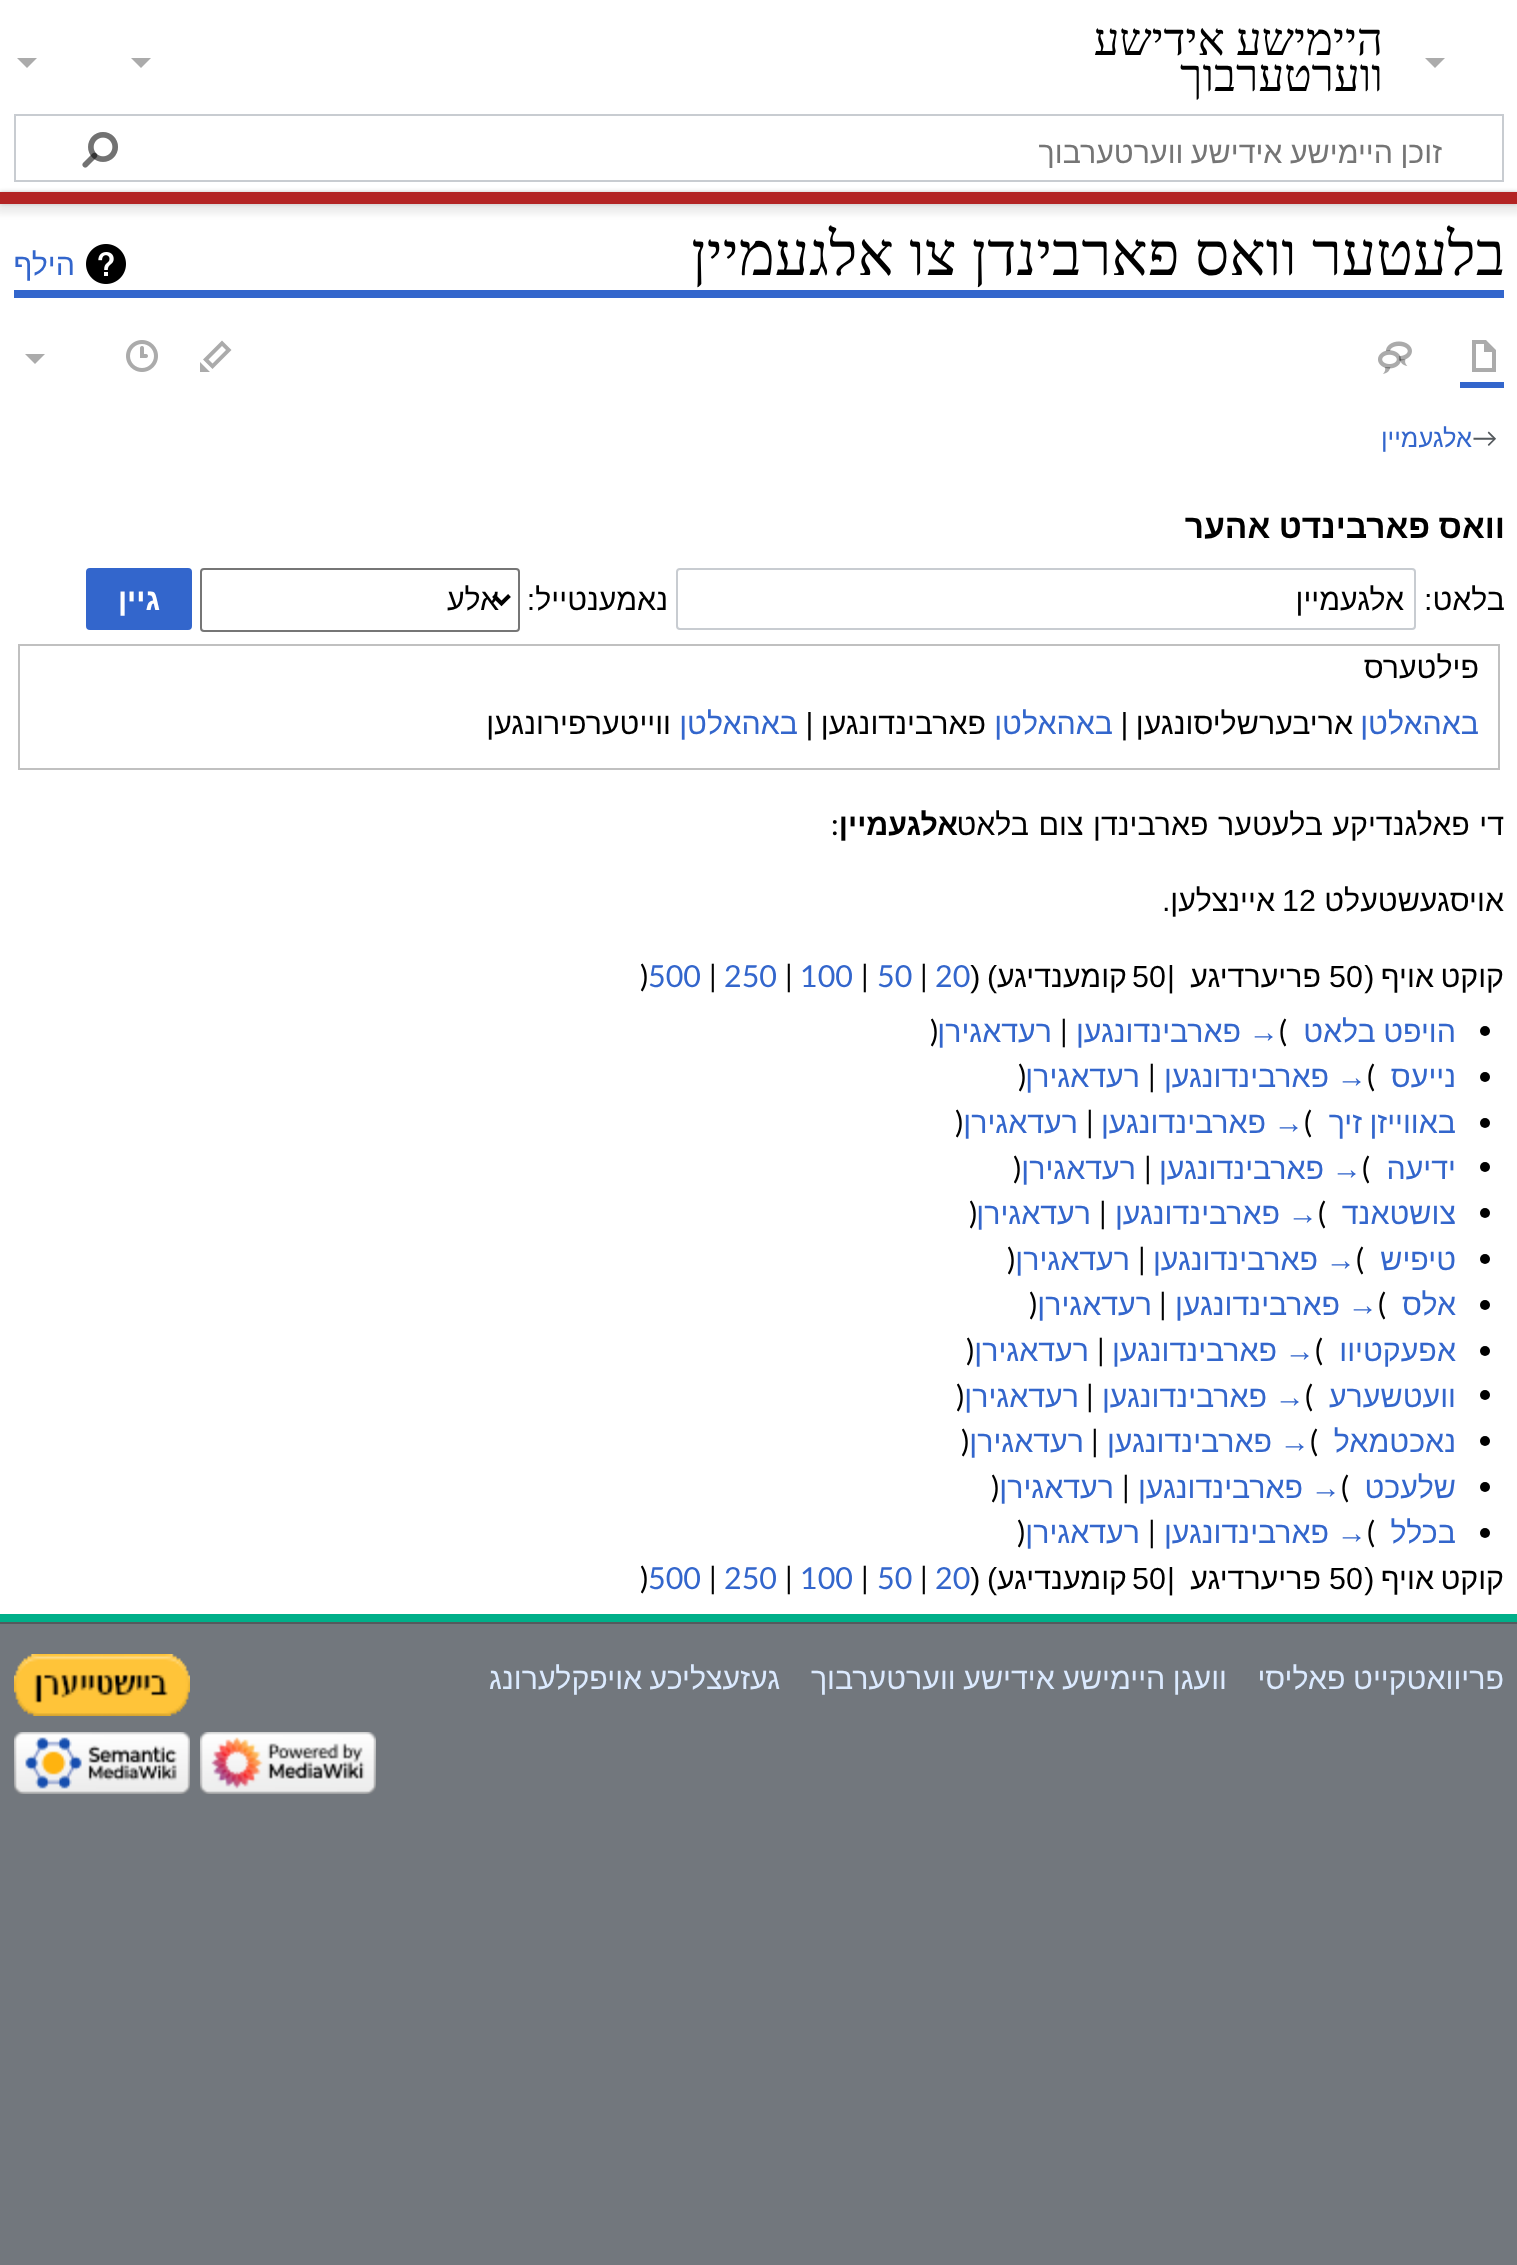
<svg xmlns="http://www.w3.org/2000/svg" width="1517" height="2265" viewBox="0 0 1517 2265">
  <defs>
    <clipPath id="clip1"><path d="M160 132h1282v36H160z"/></clipPath>
  </defs>
  <rect width="100%" height="100%" fill="#72777d"/>
  <path d="M0 0h1517v192H0z" fill="#fff"/>
  <path d="M37 58L27 68L17 58Z" fill="#ababab"/>
  <path d="M15 115h1488v66H15z" fill="none" stroke="#c8ccd1" stroke-width="2"/>
  <image x="82" y="132" width="36" height="36" href="img/1.png"/>
  <image x="82" y="132" width="36" height="36" href="img/2.png"/>
  <path d="M0 204h1517v1410H0z" fill="#fff"/>
  <path d="M0 192h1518v12H0z" fill="#00000033" filter="blur(2px)"/>
  <path d="M-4 194h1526v20H-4z" fill="#00000012" filter="blur(3px)"/>
  <path d="M0 192h1517v12H0z" fill="#b32424"/>
  <path d="M0 1614h1517v8H0z" fill="#00af89"/>
  <path d="M1445 58L1435 68L1425 58Z" fill="#ababab"/>
  <path d="M151 58L141 68L131 58Z" fill="#ababab"/>
  <path d="M14 290h1490v8H14z" fill="#36c"/>
  <image x="86" y="244" width="40" height="40" href="img/3.png"/>
  <path d="M1460 382h44v6H1460z" fill="#36c"/>
  <path d="M1472 340V372H1496V350L1486 340ZM1476 344H1484V352H1492V368H1476Z" fill="#ababab"/>
  <image x="1378" y="341" width="34" height="33" href="img/4.png"/>
  <path d="M222 340.5L203 359.5L212.5 369L231.5 350ZM222 346L226 350L212.5 363.5L208.5 359.5ZM210 372H200V362Z" fill="#ababab"/>
  <image x="126" y="340" width="32" height="32" href="img/5.png"/>
  <path d="M45 354L35 364L25 354Z" fill="#ababab"/>
  <rect x="677" y="569" width="738" height="60" rx="3" fill="none" stroke="#c8ccd1" stroke-width="2"/>
  <rect x="201" y="569" width="318" height="62" rx="3" fill="none" stroke="#767676" stroke-width="2"/>
  <path d="M493.5 595.5L501.5 603.5L509.5 595.5" fill="none" stroke="#000" stroke-width="4"/>
  <rect x="87" y="569" width="104" height="60" rx="3" fill="#36c" stroke="#36c" stroke-width="2"/>
  <path d="M19 645h1480v124H19z" fill="none" stroke="#c0c0c0" stroke-width="2"/>
  <circle cx="1485" cy="1031" r="5" fill="#000"/>
  <circle cx="1485" cy="1077" r="5" fill="#000"/>
  <circle cx="1485" cy="1123" r="5" fill="#000"/>
  <circle cx="1485" cy="1167" r="5" fill="#000"/>
  <circle cx="1485" cy="1213" r="5" fill="#000"/>
  <circle cx="1485" cy="1259" r="5" fill="#000"/>
  <circle cx="1485" cy="1305" r="5" fill="#000"/>
  <circle cx="1485" cy="1351" r="5" fill="#000"/>
  <circle cx="1485" cy="1395" r="5" fill="#000"/>
  <circle cx="1485" cy="1441" r="5" fill="#000"/>
  <circle cx="1485" cy="1487" r="5" fill="#000"/>
  <circle cx="1485" cy="1533" r="5" fill="#000"/>
  <path d="M0 1622h1517v2H0z" fill="#54595d"/>
  <image x="14" y="1654" width="176" height="62" href="img/6.png"/>
  <image x="200" y="1732" width="176" height="62" href="img/7.png"/>
  <image x="14" y="1732" width="176" height="62" href="img/8.png"/>
  <g font-family="Liberation Serif" font-size="45.5" direction="rtl" fill="#000">
    <text x="1383" y="55">היימישע אידישע</text>
    <text x="1383" y="91">ווערטערבוך</text>
  </g>
  <g clip-path="url(#clip1)">
    <text x="1442" y="163" word-spacing="-1" font-family="Liberation Sans" font-size="30.4" direction="rtl" fill="#757575">זוכן היימישע אידישע ווערטערבוך</text>
  </g>
  <text x="1505" y="275" font-family="Liberation Serif" font-size="60.75" direction="rtl" fill="#000">בלעטער וואס פארבינדן צו אלגעמיין</text>
  <text x="75" y="275" font-family="Liberation Sans" font-size="30.4" direction="rtl" fill="#36c">הילף</text>
  <text x="1472" y="447" font-family="Lato" font-size="25.5" fill="#54595d">→</text>
  <text x="1472" y="447" font-family="Liberation Sans" font-size="25.5" direction="rtl" fill="#36c">אלגעמיין</text>
  <text x="1505" y="538" word-spacing="-1" font-family="Liberation Sans" font-size="33.5" font-weight="bold" direction="rtl" fill="#000">װאס פארבינדט אהער</text>
  <g font-family="Liberation Sans" font-size="30.4" direction="rtl" fill="#000">
    <text x="1505" y="610">בלאט:</text>
    <text x="1404" y="610">אלגעמיין</text>
    <text x="668" y="610">נאמענטייל:</text>
    <text x="499" y="610">אלע</text>
  </g>
  <text x="160" y="610" font-family="Liberation Sans" font-size="30.4" font-weight="bold" direction="rtl" fill="#fff">גיין</text>
  <text x="1479" y="678" font-family="Liberation Sans" font-size="30.4" direction="rtl" fill="#000">פילטערס</text>
  <text x="1479" y="734" font-family="Liberation Sans" font-size="30.4" direction="rtl" fill="#36c">באהאלטן</text>
  <text x="1353" y="734" word-spacing="-1" font-family="Liberation Sans" font-size="30.4" direction="rtl" fill="#000">אריבערשליסונגען |</text>
  <text x="1113" y="734" font-family="Liberation Sans" font-size="30.4" direction="rtl" fill="#36c">באהאלטן</text>
  <text x="986" y="734" word-spacing="-1" font-family="Liberation Sans" font-size="30.4" direction="rtl" fill="#000">פארבינדונגען |</text>
  <text x="798" y="734" font-family="Liberation Sans" font-size="30.4" direction="rtl" fill="#36c">באהאלטן</text>
  <g font-family="Liberation Sans" font-size="30.4" direction="rtl" fill="#000">
    <text x="671" y="734">ווייטערפירונגען</text>
    <text x="1504" y="835" word-spacing="1">די פאלגנדיקע בלעטער פארבינדן צום בלאט</text>
  </g>
  <text x="958" y="835" font-family="Liberation Sans" font-size="30.4" font-weight="bold" direction="rtl" fill="#000">אלגעמיין</text>
  <text x="831" y="835" font-family="Lato" font-size="30.4" fill="#000">:</text>
  <text x="1504" y="911" font-family="Liberation Sans" font-size="30.4" direction="rtl" fill="#000">אויסגעשטעלט</text>
  <text x="1282" y="911" font-family="Liberation Sans" font-size="30.4" fill="#000">12</text>
  <g font-family="Liberation Sans" font-size="30.4" direction="rtl" fill="#000">
    <text x="1275" y="911">איינצלען.</text>
    <text x="1504" y="987" word-spacing="-2">קוקט אויף (</text>
  </g>
  <text x="1329" y="987" font-family="Liberation Sans" font-size="30.4" fill="#000">50</text>
  <text x="1321" y="987" font-family="Liberation Sans" font-size="30.4" direction="rtl" fill="#000">פריערדיגע</text>
  <g font-family="Liberation Sans" font-size="30.4" fill="#000">
    <text x="1167" y="987">|</text>
    <text x="1132" y="987">50</text>
  </g>
  <text x="1127" y="987" word-spacing="-2" font-family="Liberation Sans" font-size="30.4" direction="rtl" fill="#000">קומענדיגע) (</text>
  <text x="935" y="987" font-family="Lato" font-size="30.4" fill="#36c">20</text>
  <text x="920" y="987" font-family="Lato" font-size="30.4" fill="#000">|</text>
  <text x="877" y="987" font-family="Lato" font-size="30.4" fill="#36c">50</text>
  <text x="861" y="987" font-family="Lato" font-size="30.4" fill="#000">|</text>
  <text x="800" y="987" font-family="Lato" font-size="30.4" fill="#36c">100</text>
  <text x="785" y="987" font-family="Lato" font-size="30.4" fill="#000">|</text>
  <text x="724" y="987" font-family="Lato" font-size="30.4" fill="#36c">250</text>
  <text x="709" y="987" font-family="Lato" font-size="30.4" fill="#000">|</text>
  <text x="648" y="987" font-family="Lato" font-size="30.4" fill="#36c">500</text>
  <text x="640" y="987" font-family="Lato" font-size="30.4" fill="#000">)</text>
  <text x="1456" y="1042" word-spacing="-1" font-family="Liberation Sans" font-size="30.4" direction="rtl" fill="#36c">הויפט בלאט</text>
  <text x="1279" y="1042" font-family="Lato" font-size="30.4" fill="#000">(</text>
  <text x="1279" y="1042" word-spacing="-1" font-family="Liberation Sans" font-size="30.4" direction="rtl" fill="#36c">→ פארבינדונגען</text>
  <text x="1060" y="1042" font-family="Lato" font-size="30.4" fill="#000">|</text>
  <text x="1052" y="1042" font-family="Liberation Sans" font-size="30.4" direction="rtl" fill="#36c">רעדאגירן</text>
  <text x="930" y="1042" font-family="Lato" font-size="30.4" fill="#000">)</text>
  <text x="1456" y="1087" font-family="Liberation Sans" font-size="30.4" direction="rtl" fill="#36c">נייעס</text>
  <text x="1367" y="1087" font-family="Lato" font-size="30.4" fill="#000">(</text>
  <text x="1367" y="1087" word-spacing="-1" font-family="Liberation Sans" font-size="30.4" direction="rtl" fill="#36c">→ פארבינדונגען</text>
  <text x="1148" y="1087" font-family="Lato" font-size="30.4" fill="#000">|</text>
  <text x="1140" y="1087" font-family="Liberation Sans" font-size="30.4" direction="rtl" fill="#36c">רעדאגירן</text>
  <text x="1018" y="1087" font-family="Lato" font-size="30.4" fill="#000">)</text>
  <text x="1456" y="1133" word-spacing="-1" font-family="Liberation Sans" font-size="30.4" direction="rtl" fill="#36c">באווייזן זיך</text>
  <text x="1304" y="1133" font-family="Lato" font-size="30.4" fill="#000">(</text>
  <text x="1304" y="1133" word-spacing="-1" font-family="Liberation Sans" font-size="30.4" direction="rtl" fill="#36c">→ פארבינדונגען</text>
  <text x="1086" y="1133" font-family="Lato" font-size="30.4" fill="#000">|</text>
  <text x="1078" y="1133" font-family="Liberation Sans" font-size="30.4" direction="rtl" fill="#36c">רעדאגירן</text>
  <text x="955" y="1133" font-family="Lato" font-size="30.4" fill="#000">)</text>
  <text x="1456" y="1179" font-family="Liberation Sans" font-size="30.4" direction="rtl" fill="#36c">ידיעה</text>
  <text x="1362" y="1179" font-family="Lato" font-size="30.4" fill="#000">(</text>
  <text x="1362" y="1179" word-spacing="-1" font-family="Liberation Sans" font-size="30.4" direction="rtl" fill="#36c">→ פארבינדונגען</text>
  <text x="1144" y="1179" font-family="Lato" font-size="30.4" fill="#000">|</text>
  <text x="1136" y="1179" font-family="Liberation Sans" font-size="30.4" direction="rtl" fill="#36c">רעדאגירן</text>
  <text x="1013" y="1179" font-family="Lato" font-size="30.4" fill="#000">)</text>
  <text x="1456" y="1224" font-family="Liberation Sans" font-size="30.4" direction="rtl" fill="#36c">צושטאנד</text>
  <text x="1318" y="1224" font-family="Lato" font-size="30.4" fill="#000">(</text>
  <text x="1318" y="1224" word-spacing="-1" font-family="Liberation Sans" font-size="30.4" direction="rtl" fill="#36c">→ פארבינדונגען</text>
  <text x="1099" y="1224" font-family="Lato" font-size="30.4" fill="#000">|</text>
  <text x="1091" y="1224" font-family="Liberation Sans" font-size="30.4" direction="rtl" fill="#36c">רעדאגירן</text>
  <text x="969" y="1224" font-family="Lato" font-size="30.4" fill="#000">)</text>
  <text x="1456" y="1270" font-family="Liberation Sans" font-size="30.4" direction="rtl" fill="#36c">טיפיש</text>
  <text x="1356" y="1270" font-family="Lato" font-size="30.4" fill="#000">(</text>
  <text x="1356" y="1270" word-spacing="-1" font-family="Liberation Sans" font-size="30.4" direction="rtl" fill="#36c">→ פארבינדונגען</text>
  <text x="1138" y="1270" font-family="Lato" font-size="30.4" fill="#000">|</text>
  <text x="1130" y="1270" font-family="Liberation Sans" font-size="30.4" direction="rtl" fill="#36c">רעדאגירן</text>
  <text x="1007" y="1270" font-family="Lato" font-size="30.4" fill="#000">)</text>
  <text x="1456" y="1315" font-family="Liberation Sans" font-size="30.4" direction="rtl" fill="#36c">אלס</text>
  <text x="1378" y="1315" font-family="Lato" font-size="30.4" fill="#000">(</text>
  <text x="1378" y="1315" word-spacing="-1" font-family="Liberation Sans" font-size="30.4" direction="rtl" fill="#36c">→ פארבינדונגען</text>
  <text x="1159" y="1315" font-family="Lato" font-size="30.4" fill="#000">|</text>
  <text x="1152" y="1315" font-family="Liberation Sans" font-size="30.4" direction="rtl" fill="#36c">רעדאגירן</text>
  <text x="1029" y="1315" font-family="Lato" font-size="30.4" fill="#000">)</text>
  <text x="1456" y="1361" font-family="Liberation Sans" font-size="30.4" direction="rtl" fill="#36c">אפעקטיוו</text>
  <text x="1315" y="1361" font-family="Lato" font-size="30.4" fill="#000">(</text>
  <text x="1315" y="1361" word-spacing="-1" font-family="Liberation Sans" font-size="30.4" direction="rtl" fill="#36c">→ פארבינדונגען</text>
  <text x="1097" y="1361" font-family="Lato" font-size="30.4" fill="#000">|</text>
  <text x="1089" y="1361" font-family="Liberation Sans" font-size="30.4" direction="rtl" fill="#36c">רעדאגירן</text>
  <text x="966" y="1361" font-family="Lato" font-size="30.4" fill="#000">)</text>
  <text x="1456" y="1407" font-family="Liberation Sans" font-size="30.4" direction="rtl" fill="#36c">וועטשערע</text>
  <text x="1305" y="1407" font-family="Lato" font-size="30.4" fill="#000">(</text>
  <text x="1305" y="1407" word-spacing="-1" font-family="Liberation Sans" font-size="30.4" direction="rtl" fill="#36c">→ פארבינדונגען</text>
  <text x="1086" y="1407" font-family="Lato" font-size="30.4" fill="#000">|</text>
  <text x="1079" y="1407" font-family="Liberation Sans" font-size="30.4" direction="rtl" fill="#36c">רעדאגירן</text>
  <text x="956" y="1407" font-family="Lato" font-size="30.4" fill="#000">)</text>
  <text x="1456" y="1452" font-family="Liberation Sans" font-size="30.4" direction="rtl" fill="#36c">נאכטמאל</text>
  <text x="1310" y="1452" font-family="Lato" font-size="30.4" fill="#000">(</text>
  <text x="1310" y="1452" word-spacing="-1" font-family="Liberation Sans" font-size="30.4" direction="rtl" fill="#36c">→ פארבינדונגען</text>
  <text x="1091" y="1452" font-family="Lato" font-size="30.4" fill="#000">|</text>
  <text x="1084" y="1452" font-family="Liberation Sans" font-size="30.4" direction="rtl" fill="#36c">רעדאגירן</text>
  <text x="961" y="1452" font-family="Lato" font-size="30.4" fill="#000">)</text>
  <text x="1456" y="1498" font-family="Liberation Sans" font-size="30.4" direction="rtl" fill="#36c">שלעכט</text>
  <text x="1341" y="1498" font-family="Lato" font-size="30.4" fill="#000">(</text>
  <text x="1341" y="1498" word-spacing="-1" font-family="Liberation Sans" font-size="30.4" direction="rtl" fill="#36c">→ פארבינדונגען</text>
  <text x="1122" y="1498" font-family="Lato" font-size="30.4" fill="#000">|</text>
  <text x="1114" y="1498" font-family="Liberation Sans" font-size="30.4" direction="rtl" fill="#36c">רעדאגירן</text>
  <text x="991" y="1498" font-family="Lato" font-size="30.4" fill="#000">)</text>
  <text x="1456" y="1543" font-family="Liberation Sans" font-size="30.4" direction="rtl" fill="#36c">בכלל</text>
  <text x="1367" y="1543" font-family="Lato" font-size="30.4" fill="#000">(</text>
  <text x="1367" y="1543" word-spacing="-1" font-family="Liberation Sans" font-size="30.4" direction="rtl" fill="#36c">→ פארבינדונגען</text>
  <text x="1148" y="1543" font-family="Lato" font-size="30.4" fill="#000">|</text>
  <text x="1140" y="1543" font-family="Liberation Sans" font-size="30.4" direction="rtl" fill="#36c">רעדאגירן</text>
  <text x="1017" y="1543" font-family="Lato" font-size="30.4" fill="#000">)</text>
  <text x="1504" y="1589" word-spacing="-2" font-family="Liberation Sans" font-size="30.4" direction="rtl" fill="#000">קוקט אויף (</text>
  <text x="1329" y="1589" font-family="Liberation Sans" font-size="30.4" fill="#000">50</text>
  <text x="1321" y="1589" font-family="Liberation Sans" font-size="30.4" direction="rtl" fill="#000">פריערדיגע</text>
  <g font-family="Liberation Sans" font-size="30.4" fill="#000">
    <text x="1167" y="1589">|</text>
    <text x="1132" y="1589">50</text>
  </g>
  <text x="1127" y="1589" word-spacing="-2" font-family="Liberation Sans" font-size="30.4" direction="rtl" fill="#000">קומענדיגע) (</text>
  <text x="935" y="1589" font-family="Lato" font-size="30.4" fill="#36c">20</text>
  <text x="920" y="1589" font-family="Lato" font-size="30.4" fill="#000">|</text>
  <text x="877" y="1589" font-family="Lato" font-size="30.4" fill="#36c">50</text>
  <text x="861" y="1589" font-family="Lato" font-size="30.4" fill="#000">|</text>
  <text x="800" y="1589" font-family="Lato" font-size="30.4" fill="#36c">100</text>
  <text x="785" y="1589" font-family="Lato" font-size="30.4" fill="#000">|</text>
  <text x="724" y="1589" font-family="Lato" font-size="30.4" fill="#36c">250</text>
  <text x="709" y="1589" font-family="Lato" font-size="30.4" fill="#000">|</text>
  <text x="648" y="1589" font-family="Lato" font-size="30.4" fill="#36c">500</text>
  <text x="640" y="1589" font-family="Lato" font-size="30.4" fill="#000">)</text>
  <g font-family="Liberation Sans" font-size="30.4" direction="rtl" fill="#dbeaff">
    <text x="1504" y="1689" word-spacing="-1">פריוואטקייט פאליסי</text>
    <text x="1227" y="1689" word-spacing="-1">וועגן היימישע אידישע ווערטערבוך</text>
    <text x="780" y="1689" word-spacing="-1">געזעצליכע אויפקלערונג</text>
  </g>
</svg>
